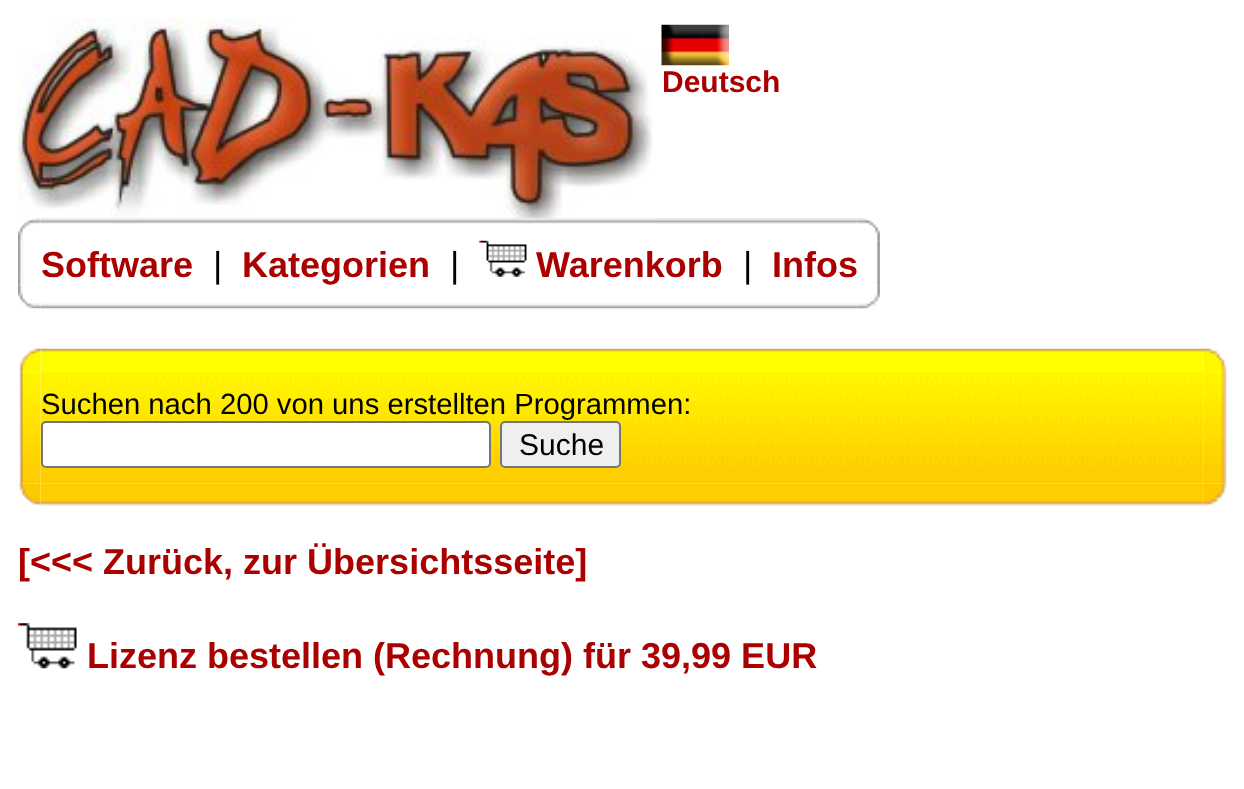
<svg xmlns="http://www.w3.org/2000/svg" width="1244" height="789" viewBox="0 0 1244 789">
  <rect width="100%" height="100%" fill="#fff"/>
  <image x="18" y="218" width="23" height="23" href="img/3.png"/>
  <image x="40" y="218" width="818" height="6" href="img/4.png"/>
  <image x="18" y="18" width="636" height="201" href="img/1.png"/>
  <image x="661" y="24" width="68" height="42" href="img/2.png"/>
  <image x="857" y="218" width="23" height="23" href="img/5.png"/>
  <image x="18" y="240" width="7" height="46" href="img/6.png"/>
  <image x="479" y="240" width="48" height="37" href="img/7.png"/>
  <image x="876" y="240" width="4" height="46" href="img/8.png"/>
  <image x="18" y="285" width="23" height="24" href="img/9.png"/>
  <image x="40" y="303" width="818" height="6" href="img/10.png"/>
  <image x="857" y="285" width="23" height="24" href="img/11.png"/>
  <image x="19" y="348" width="22" height="24" href="img/12.png"/>
  <image x="40" y="348" width="1164" height="24" href="img/13.png"/>
  <image x="1203" y="348" width="24" height="24" href="img/14.png"/>
  <image x="19" y="371" width="22" height="113" href="img/15.png"/>
  <image x="40" y="371" width="1164" height="113" href="img/16.png"/>
  <rect x="42" y="422" width="448" height="45" rx="4" fill="#fff" stroke="#767676" stroke-width="2"/>
  <rect x="501" y="422" width="119" height="45" rx="4" fill="#efefef" stroke="#767676" stroke-width="2"/>
  <image x="1203" y="371" width="24" height="113" href="img/17.png"/>
  <image x="18" y="483" width="23" height="24" href="img/18.png"/>
  <image x="40" y="483" width="1164" height="24" href="img/19.png"/>
  <image x="1203" y="483" width="24" height="24" href="img/20.png"/>
  <image x="18" y="623" width="59" height="46" href="img/21.png"/>
  <text x="662" y="92" font-family="Liberation Sans" font-size="30" font-weight="bold" fill="#a00">Deutsch</text>
  <text x="41" y="277" font-family="Liberation Sans" font-size="36" font-weight="bold" fill="#a00">Software</text>
  <text x="213" y="277" font-family="Liberation Sans" font-size="36" fill="#000">|</text>
  <text x="242" y="277" font-family="Liberation Sans" font-size="36" font-weight="bold" fill="#a00">Kategorien</text>
  <text x="450" y="277" font-family="Liberation Sans" font-size="36" fill="#000">|</text>
  <text x="536" y="277" font-family="Liberation Sans" font-size="36" font-weight="bold" fill="#a00">Warenkorb</text>
  <text x="743" y="277" font-family="Liberation Sans" font-size="36" fill="#000">|</text>
  <text x="772" y="277" font-family="Liberation Sans" font-size="36" font-weight="bold" fill="#a00">Infos</text>
  <text x="41" y="414" font-family="Liberation Sans" font-size="29.25" fill="#000">Suchen nach 200 von uns erstellten Programmen:</text>
  <text x="519" y="455" font-family="Liberation Sans" font-size="30" fill="#000">Suche</text>
  <g font-family="Liberation Sans" font-size="36" font-weight="bold" fill="#a00">
    <text x="18" y="574">[&lt;&lt;&lt; Zurück, zur Übersichtsseite]</text>
    <text x="87" y="668">Lizenz bestellen (Rechnung) für 39,99 EUR</text>
  </g>
</svg>
